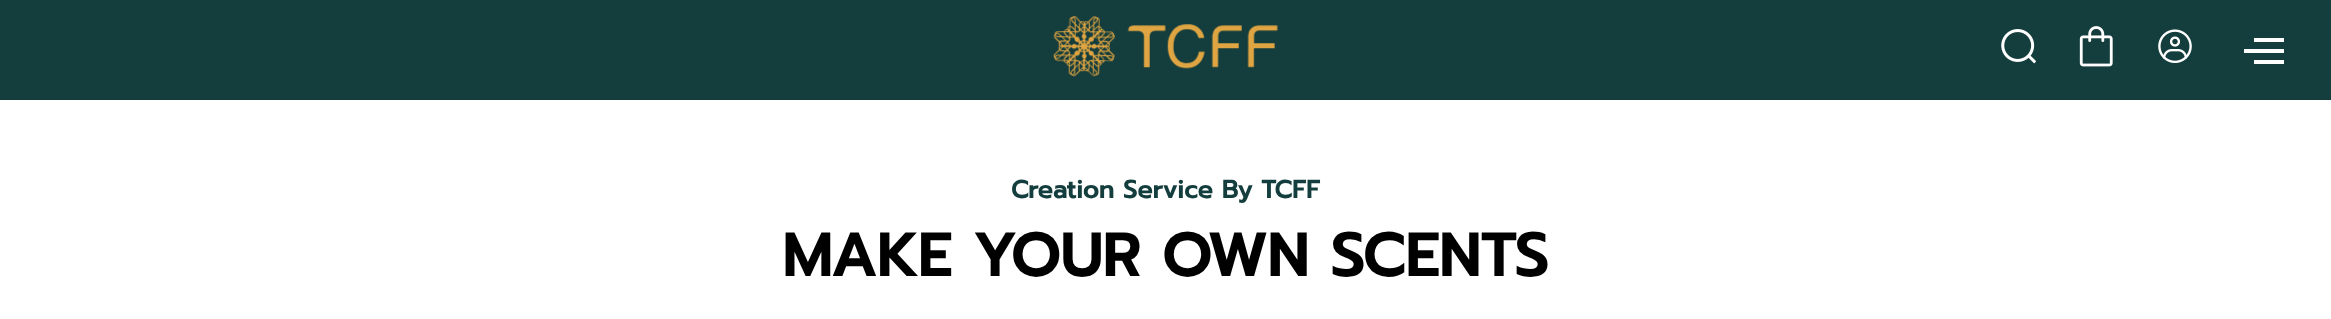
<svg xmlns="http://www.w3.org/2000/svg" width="2331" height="319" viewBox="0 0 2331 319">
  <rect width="100%" height="100%" fill="#fff"/>
  <path d="M0 0h2331v100H0z" fill="#143d3d"/>
  <image x="1053" y="16" width="225" height="61" href="img/1.png"/>
  <image x="2001" y="29" width="35" height="35" href="img/2.png"/>
  <image x="2079" y="26" width="34" height="41" href="img/3.png"/>
  <image x="2158" y="29" width="34" height="34" href="img/4.png"/>
  <path d="M2244 49h40v4H2244z" fill="#fff"/>
  <path d="M2254 38h30v4H2254z" fill="#fff"/>
  <path d="M2254 60h30v4H2254z" fill="#fff"/>
  <text x="1011" y="198" font-family="Prompt" font-size="25" font-weight="bold" fill="#143d3d">Creation Service By TCFF</text>
  <text x="782" y="276" font-family="Prompt" font-size="60" font-weight="bold" fill="#000">MAKE YOUR OWN SCENTS</text>
</svg>
